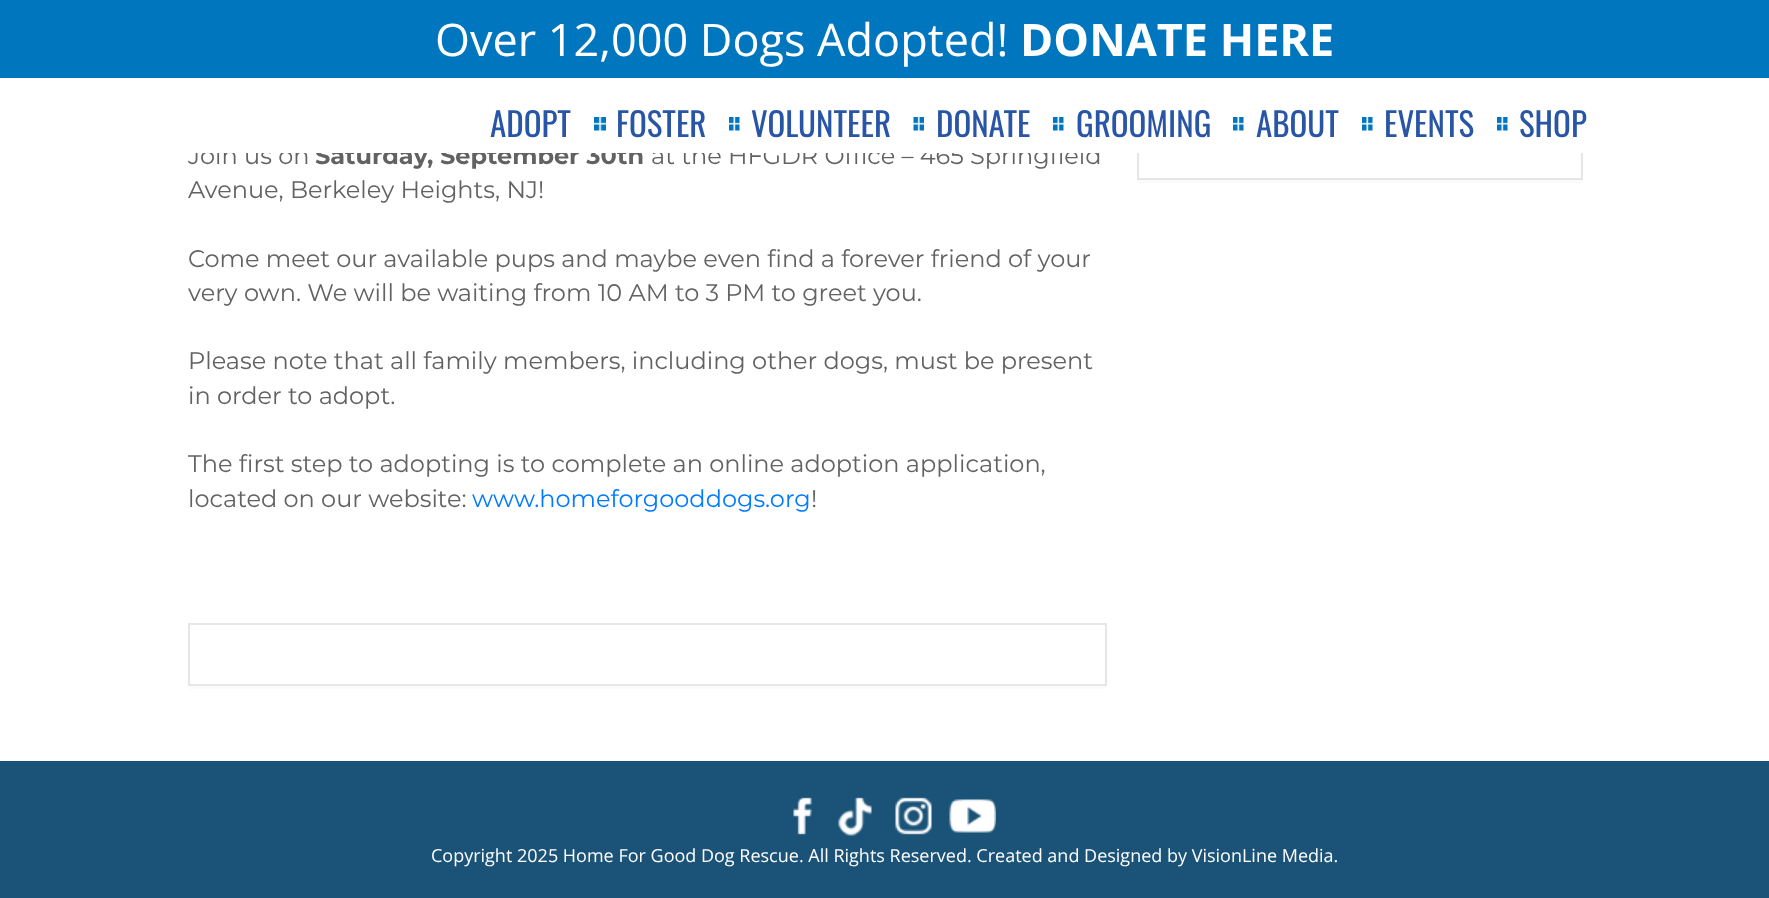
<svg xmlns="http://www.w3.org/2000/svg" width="1769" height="898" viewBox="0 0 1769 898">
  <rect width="100%" height="100%" fill="#1a5377"/>
  <path d="M0 153h1769v608H0z" fill="#fff"/>
  <path d="M1137 180V183H1583V-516H1582V180Z" fill="#fbfbfb"/>
  <path d="M1138 -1h444v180H1138z" fill="none" stroke="#e6e6e6" stroke-width="2"/>
  <path d="M0 0h1769v78H0z" fill="#0076be"/>
  <path d="M188 686h919v3H188z" fill="#fbfbfb"/>
  <path d="M189 624h917v61H189z" fill="none" stroke="#e6e6e6" stroke-width="2"/>
  <image x="793" y="797" width="19" height="38" href="img/5.png"/>
  <image x="838" y="797" width="34" height="39" href="img/6.png"/>
  <image x="895" y="797" width="37" height="38" href="img/7.png"/>
  <image x="949" y="799" width="47" height="34" href="img/8.png"/>
  <text x="435" y="56" font-family="Open Sans" font-size="45" fill="#fff">Over 12,000 Dogs Adopted!</text>
  <text x="1020" y="56" font-family="Open Sans" font-size="45" font-weight="bold" fill="#fff">DONATE HERE</text>
  <text x="188" y="164" font-family="Montserrat" font-size="24" fill="#626262">Join us on</text>
  <text x="315" y="164" font-family="Montserrat" font-size="24" font-weight="bold" fill="#626262">Saturday, September 30th</text>
  <text x="651" y="164" font-family="Montserrat" font-size="24" fill="#626262">at the HFGDR Office – 465 Springfield</text>
  <path d="M0 78h1769v75H0z" fill="#fff"/>
  <text x="1384" y="137" font-family="Oswald" font-size="33" fill="#2955a6">EVENTS</text>
  <image x="1362" y="117" width="11" height="14" href="img/2.png"/>
  <text x="1256" y="137" font-family="Oswald" font-size="33" fill="#2955a6">ABOUT</text>
  <image x="1233" y="117" width="11" height="14" href="img/2.png"/>
  <text x="936" y="137" font-family="Oswald" font-size="33" fill="#2955a6">DONATE</text>
  <image x="913" y="117" width="11" height="14" href="img/3.png"/>
  <text x="1519" y="137" font-family="Oswald" font-size="33" fill="#2955a6">SHOP</text>
  <image x="1497" y="117" width="11" height="14" href="img/2.png"/>
  <text x="1076" y="137" font-family="Oswald" font-size="33" fill="#2955a6">GROOMING</text>
  <image x="1053" y="117" width="11" height="14" href="img/4.png"/>
  <text x="751" y="137" font-family="Oswald" font-size="33" fill="#2955a6">VOLUNTEER</text>
  <image x="729" y="117" width="11" height="14" href="img/2.png"/>
  <text x="616" y="137" font-family="Oswald" font-size="33" fill="#2955a6">FOSTER</text>
  <image x="594" y="117" width="12" height="14" href="img/1.png"/>
  <text x="490" y="137" font-family="Oswald" font-size="33" fill="#2955a6">ADOPT</text>
  <g font-family="Montserrat" font-size="24" fill="#626262">
    <text x="188" y="198">Avenue, Berkeley Heights, NJ!</text>
    <text x="188" y="267">Come meet our available pups and maybe even find a forever friend of your</text>
    <text x="188" y="301">very own. We will be waiting from 10 AM to 3 PM to greet you.</text>
    <text x="188" y="369">Please note that all family members, including other dogs, must be present</text>
    <text x="188" y="404">in order to adopt.</text>
    <text x="188" y="472">The first step to adopting is to complete an online adoption application,</text>
    <text x="188" y="507">located on our website:</text>
  </g>
  <text x="472" y="507" font-family="Montserrat" font-size="24" fill="#007bff">www.homeforgooddogs.org</text>
  <text x="811" y="507" font-family="Montserrat" font-size="24" fill="#626262">!</text>
  <text x="431" y="862" font-family="Open Sans" font-size="18" fill="#fff">Copyright 2025 Home For Good Dog Rescue. All Rights Reserved. Created and Designed by VisionLine Media.</text>
</svg>
